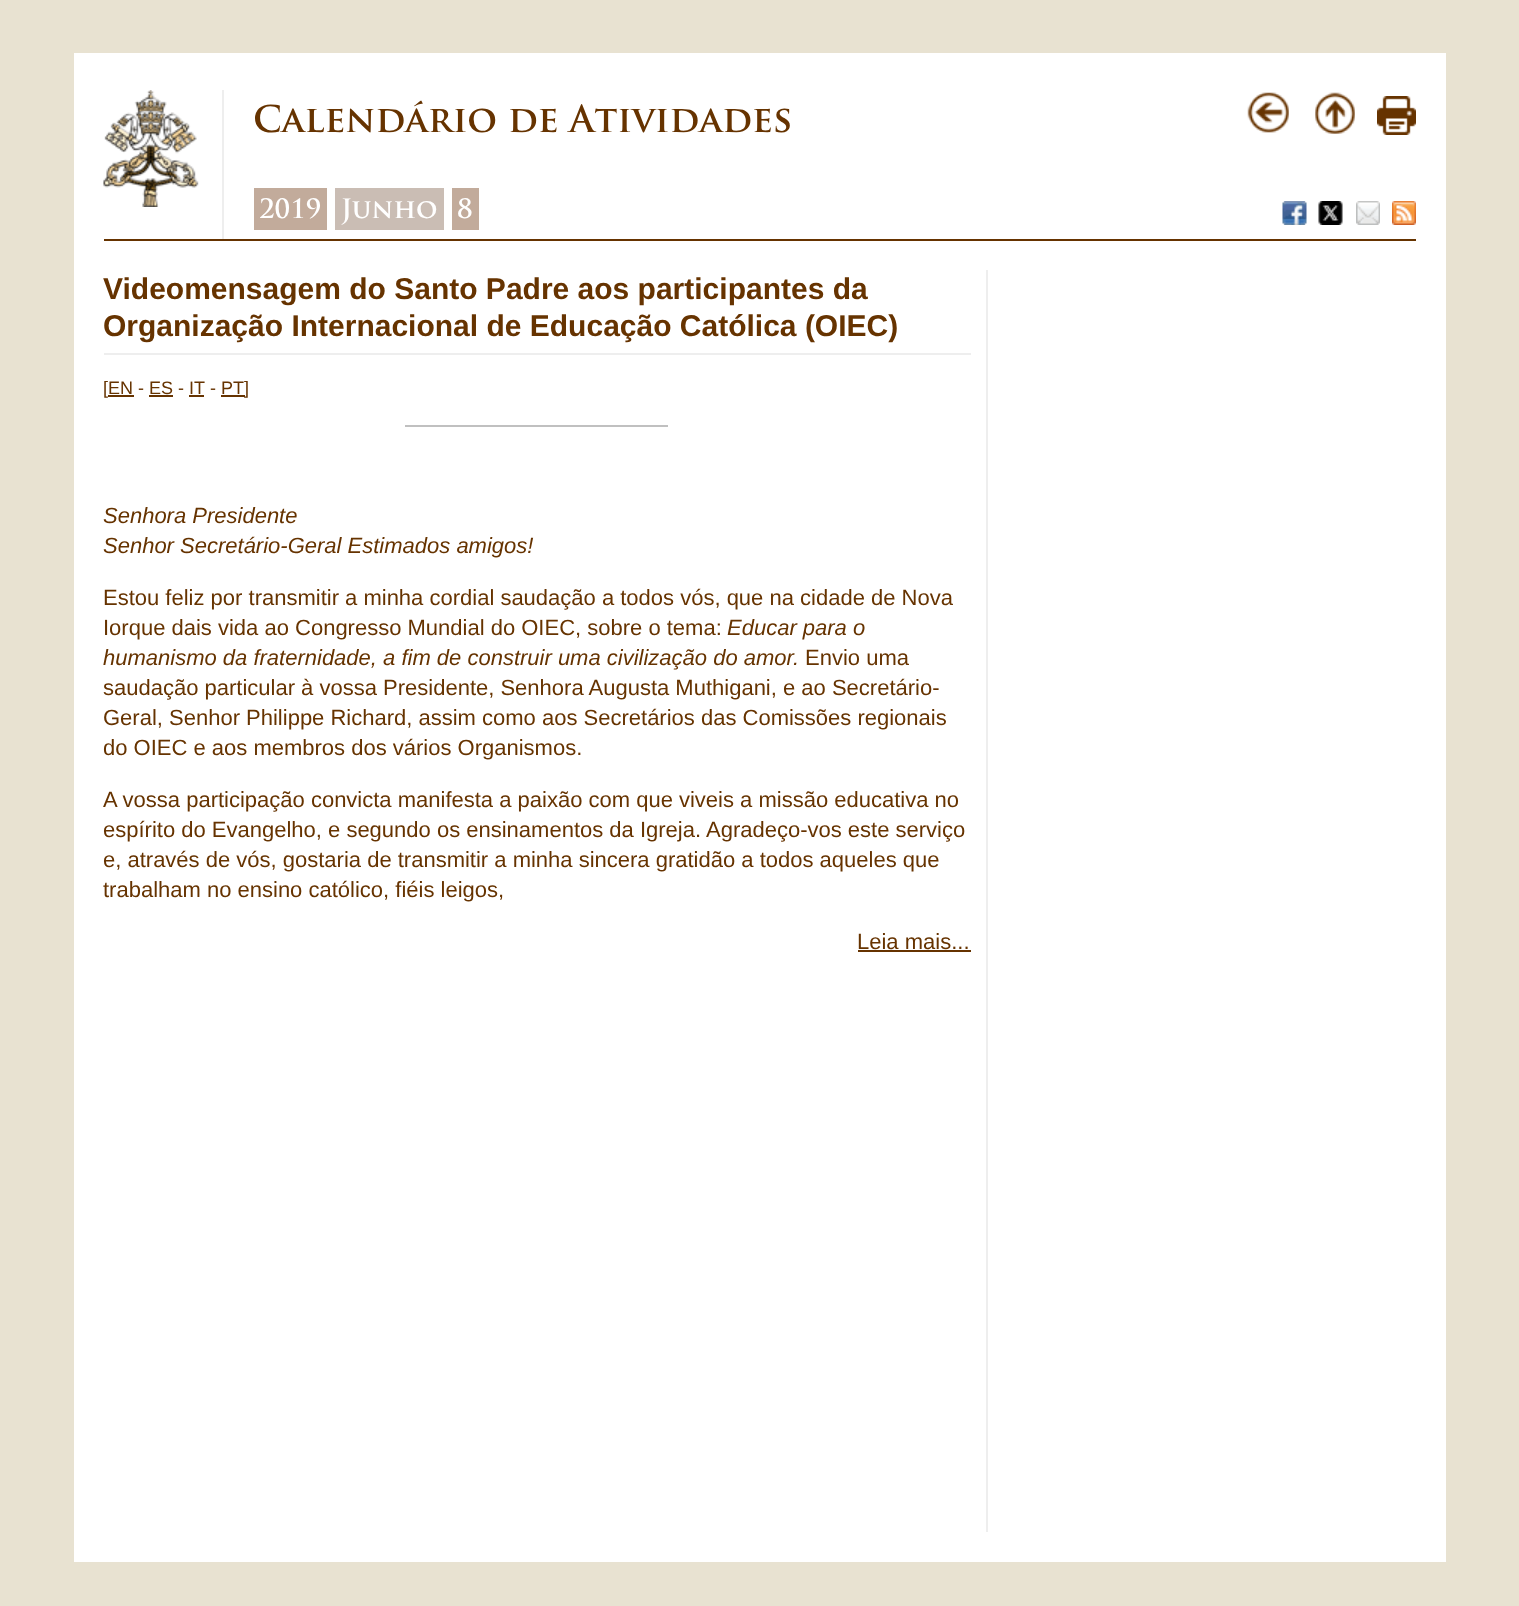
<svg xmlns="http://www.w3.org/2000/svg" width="1519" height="1606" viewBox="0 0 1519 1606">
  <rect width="100%" height="100%" fill="#e8e2d1"/>
  <path d="M74 53h1372v1509H74z" fill="#fff"/>
  <path d="M104 239h1312v2H104z" fill="#630"/>
  <path d="M222 90h2v149H222z" fill="#eee"/>
  <image x="103" y="90" width="96" height="117" href="img/1.png"/>
  <path d="M254 188h73v42H254z" fill="#c2ab9b"/>
  <path d="M335 188h109v42H335z" fill="#cabdb4"/>
  <path d="M452 188h27v42H452z" fill="#c2ab9b"/>
  <image x="1247" y="92" width="42" height="41" href="img/2.png"/>
  <image x="1315" y="92" width="40" height="42" href="img/3.png"/>
  <image x="1377" y="96" width="39" height="39" href="img/4.png"/>
  <image x="1282" y="201" width="25" height="24" href="img/5.png"/>
  <image x="1318" y="201" width="25" height="24" href="img/6.png"/>
  <image x="1356" y="201" width="24" height="24" href="img/7.png"/>
  <image x="1392" y="201" width="24" height="24" href="img/8.png"/>
  <path d="M986 270h2v1262H986z" fill="#eee"/>
  <path d="M104 353h867v2H104z" fill="#eee"/>
  <path d="M108 395h26v2H108z" fill="#630"/>
  <path d="M149 395h24v2H149z" fill="#630"/>
  <path d="M189 395h15v2H189z" fill="#630"/>
  <path d="M221 395h24v2H221z" fill="#630"/>
  <path d="M405 425h263v2H405z" fill="#c0c0c0"/>
  <path d="M858 950h113v2H858z" fill="#630"/>
  <text x="253" y="132" font-family="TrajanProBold" font-size="36" font-weight="bold" fill="#630">Calendário de Atividades</text>
  <g font-family="TrajanProBold" font-size="26" font-weight="bold" fill="#fff">
    <text x="259" y="218">2019</text>
    <text x="341" y="218">Junho</text>
    <text x="457" y="218">8</text>
  </g>
  <g font-family="Liberation Sans" font-size="30" font-weight="bold" fill="#630">
    <text x="103" y="299">Videomensagem do Santo Padre aos participantes da</text>
    <text x="103" y="336">Organização Internacional de Educação Católica (OIEC)</text>
  </g>
  <g font-family="Liberation Sans" font-size="18" fill="#630">
    <text x="103" y="394">[EN - ES - IT</text>
    <text x="210" y="394">- PT</text>
    <text x="244" y="394">]</text>
  </g>
  <g font-family="Liberation Sans" font-size="22" font-style="italic" fill="#630">
    <text x="103" y="523">Senhora Presidente</text>
    <text x="103" y="553">Senhor Secretário-Geral Estimados amigos!</text>
  </g>
  <g font-family="Liberation Sans" font-size="22" fill="#630">
    <text x="103" y="605">Estou feliz por transmitir a minha cordial saudação a todos vós, que na cidade de Nova</text>
    <text x="103" y="635">Iorque dais vida ao Congresso Mundial do OIEC, sobre o tema:</text>
  </g>
  <g font-family="Liberation Sans" font-size="22" font-style="italic" fill="#630">
    <text x="727" y="635">Educar para o</text>
    <text x="103" y="665">humanismo da fraternidade, a fim de construir uma civilização do amor.</text>
  </g>
  <g font-family="Liberation Sans" font-size="22" fill="#630">
    <text x="805" y="665">Envio uma</text>
    <text x="103" y="695">saudação particular à vossa Presidente, Senhora Augusta Muthigani, e ao Secretário-</text>
    <text x="103" y="725">Geral, Senhor Philippe Richard, assim como aos Secretários das Comissões regionais</text>
    <text x="103" y="755">do OIEC e aos membros dos vários Organismos.</text>
    <text x="103" y="807">A vossa participação convicta manifesta a paixão com que viveis a missão educativa no</text>
    <text x="103" y="837">espírito do Evangelho, e segundo os ensinamentos da Igreja. Agradeço-vos este serviço</text>
    <text x="103" y="867">e, através de vós, gostaria de transmitir a minha sincera gratidão a todos aqueles que</text>
    <text x="103" y="897">trabalham no ensino católico, fiéis leigos,</text>
    <text x="857" y="949">Leia mais...</text>
  </g>
</svg>
